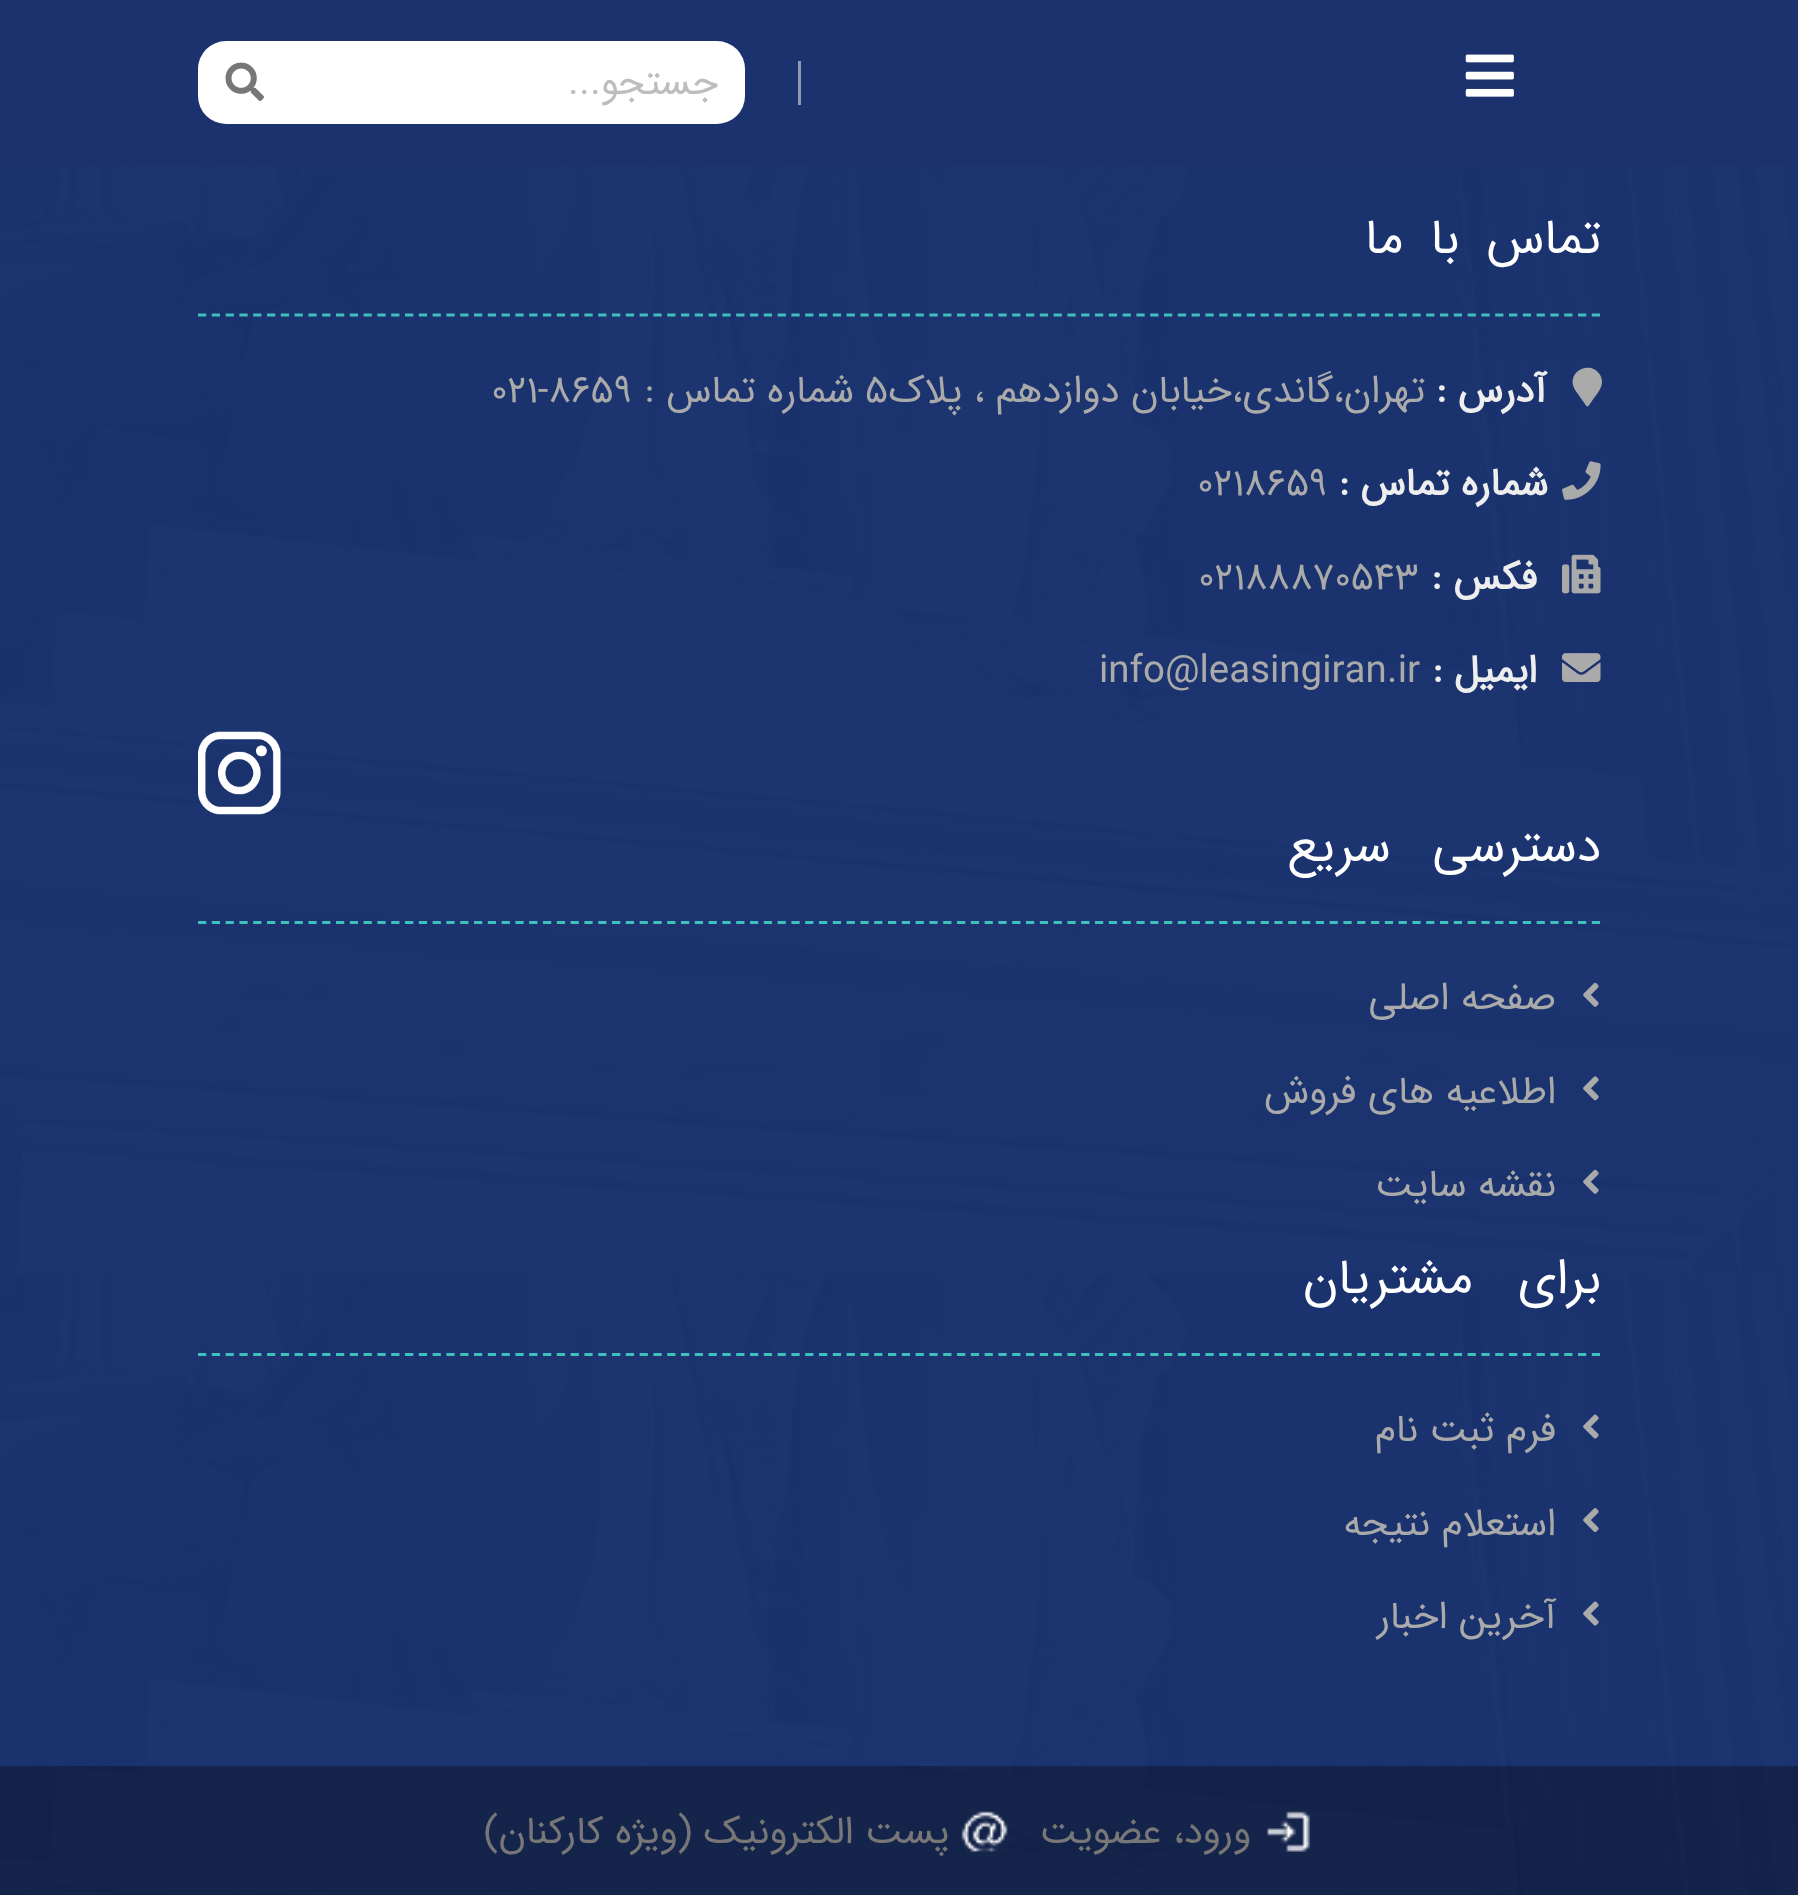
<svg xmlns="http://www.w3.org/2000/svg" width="1798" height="1895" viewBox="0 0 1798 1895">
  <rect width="100%" height="100%" fill="#1f3c88"/>
  <path d="M0 0h1798v165H0z" fill="#1b326f"/>
  <image x="1465" y="54" width="49" height="43" href="img/1.png"/>
  <path d="M798 61h3v44H798z" fill="#8d99b7"/>
  <rect x="198" y="41" width="547" height="83" rx="28" fill="#fff"/>
  <image x="225" y="62" width="39" height="39" href="img/2.png"/>
  <path d="M0 1766h1798v129H0z" fill="#162858"/>
  <image x="0" y="165" width="1798" height="1730" href="img/3.png"/>
  <path d="M198 315H1600.5" fill="none" stroke="#3fc0bc" stroke-width="2.8" stroke-dasharray="8.25 5.55"/>
  <path d="M1586 405.5L1580 397C1577.5 393 1574 389.5 1573 385C1570 369.5 1590.5 361.5 1599.5 374C1606 384 1598.5 392 1593 399.5L1588.5 406C1587.5 406.5 1586.5 406.5 1586 405.5Z" fill="#aaa"/>
  <image x="1562" y="461" width="39" height="39" href="img/4.png"/>
  <image x="1562" y="554" width="39" height="40" href="img/5.png"/>
  <image x="1562" y="653" width="39" height="29" href="img/6.png"/>
  <image x="198" y="731" width="83" height="84" href="img/7.png"/>
  <path d="M198 922.5H1600.5" fill="none" stroke="#3fc0bc" stroke-width="2.8" stroke-dasharray="8.25 5.55"/>
  <image x="1583" y="982" width="16" height="25" href="img/8.png"/>
  <image x="1583" y="1076" width="16" height="25" href="img/9.png"/>
  <image x="1583" y="1169" width="16" height="25" href="img/10.png"/>
  <path d="M198 1354.5H1600.5" fill="none" stroke="#3fc0bc" stroke-width="2.8" stroke-dasharray="8.25 5.55"/>
  <image x="1583" y="1414" width="16" height="25" href="img/11.png"/>
  <image x="1583" y="1508" width="16" height="25" href="img/12.png"/>
  <image x="1583" y="1601" width="16" height="25" href="img/13.png"/>
  <image x="1267" y="1811" width="43" height="41" href="img/14.png"/>
  <image x="961" y="1811" width="47" height="41" href="img/15.png"/>
  <text x="718" y="94" font-family="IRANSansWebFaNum" font-size="38.5" direction="rtl" fill="#bdbdbd">جستجو...</text>
  <text x="1601" y="253" word-spacing="12" font-family="IRANSansWebFaNum" font-size="49.5" letter-spacing="-2.5" direction="rtl" fill="#fff">تماس با ما</text>
  <text x="1546" y="402" font-family="IRANSansWebFaNum" font-size="38.5" font-weight="bold" direction="rtl" fill="#eee">آدرس :</text>
  <text x="1425" y="402" font-family="IRANSansWebFaNum" font-size="38.5" direction="rtl" fill="#aaa">تهران،گاندی،خیابان دوازدهم ، پلاک</text>
  <text x="865" y="402" font-family="IRANSansWebFaNum" font-size="38.5" fill="#aaa">5</text>
  <text x="854" y="402" font-family="IRANSansWebFaNum" font-size="38.5" direction="rtl" fill="#aaa">شماره تماس :</text>
  <text x="491" y="402" font-family="IRANSansWebFaNum" font-size="38.5" fill="#aaa">021-8659</text>
  <text x="1548" y="495" font-family="IRANSansWebFaNum" font-size="38.5" font-weight="bold" direction="rtl" fill="#eee">شماره تماس</text>
  <text x="1339" y="495" font-family="IRANSansWebFaNum" font-size="38.5" font-weight="bold" fill="#eee">:</text>
  <text x="1197" y="495" font-family="IRANSansWebFaNum" font-size="38.5" fill="#aaa">0218659</text>
  <text x="1537" y="589" font-family="IRANSansWebFaNum" font-size="38.5" font-weight="bold" direction="rtl" fill="#eee">فکس :</text>
  <text x="1198" y="589" font-family="IRANSansWebFaNum" font-size="38.5" fill="#aaa">02188870543</text>
  <text x="1537" y="682" font-family="IRANSansWebFaNum" font-size="38.5" font-weight="bold" direction="rtl" fill="#eee">ایمیل :</text>
  <text x="1099" y="682" font-family="IRANSansWebFaNum" font-size="38.5" fill="#aaa">info@leasingiran.ir</text>
  <text x="1601" y="861" word-spacing="27" font-family="IRANSansWebFaNum" font-size="49.5" letter-spacing="-2.5" direction="rtl" fill="#fff">دسترسی سریع</text>
  <g font-family="IRANSansWebFaNum" font-size="38.5" direction="rtl" fill="#aaa">
    <text x="1556" y="1009">صفحه اصلی</text>
    <text x="1556" y="1103">اطلاعیه های فروش</text>
    <text x="1556" y="1196">نقشه سایت</text>
  </g>
  <text x="1601" y="1293" word-spacing="30" font-family="IRANSansWebFaNum" font-size="49.5" letter-spacing="-2.5" direction="rtl" fill="#fff">برای مشتریان</text>
  <g font-family="IRANSansWebFaNum" font-size="38.5" direction="rtl" fill="#aaa">
    <text x="1556" y="1441">فرم ثبت نام</text>
    <text x="1556" y="1535">استعلام نتیجه</text>
    <text x="1556" y="1628">آخرین اخبار</text>
  </g>
  <g font-family="IRANSansWebFaNum" font-size="38.5" direction="rtl" fill="#777">
    <text x="1251" y="1843">ورود، عضویت</text>
    <text x="949" y="1843">پست الکترونیک (ویژه کارکنان)</text>
  </g>
</svg>
